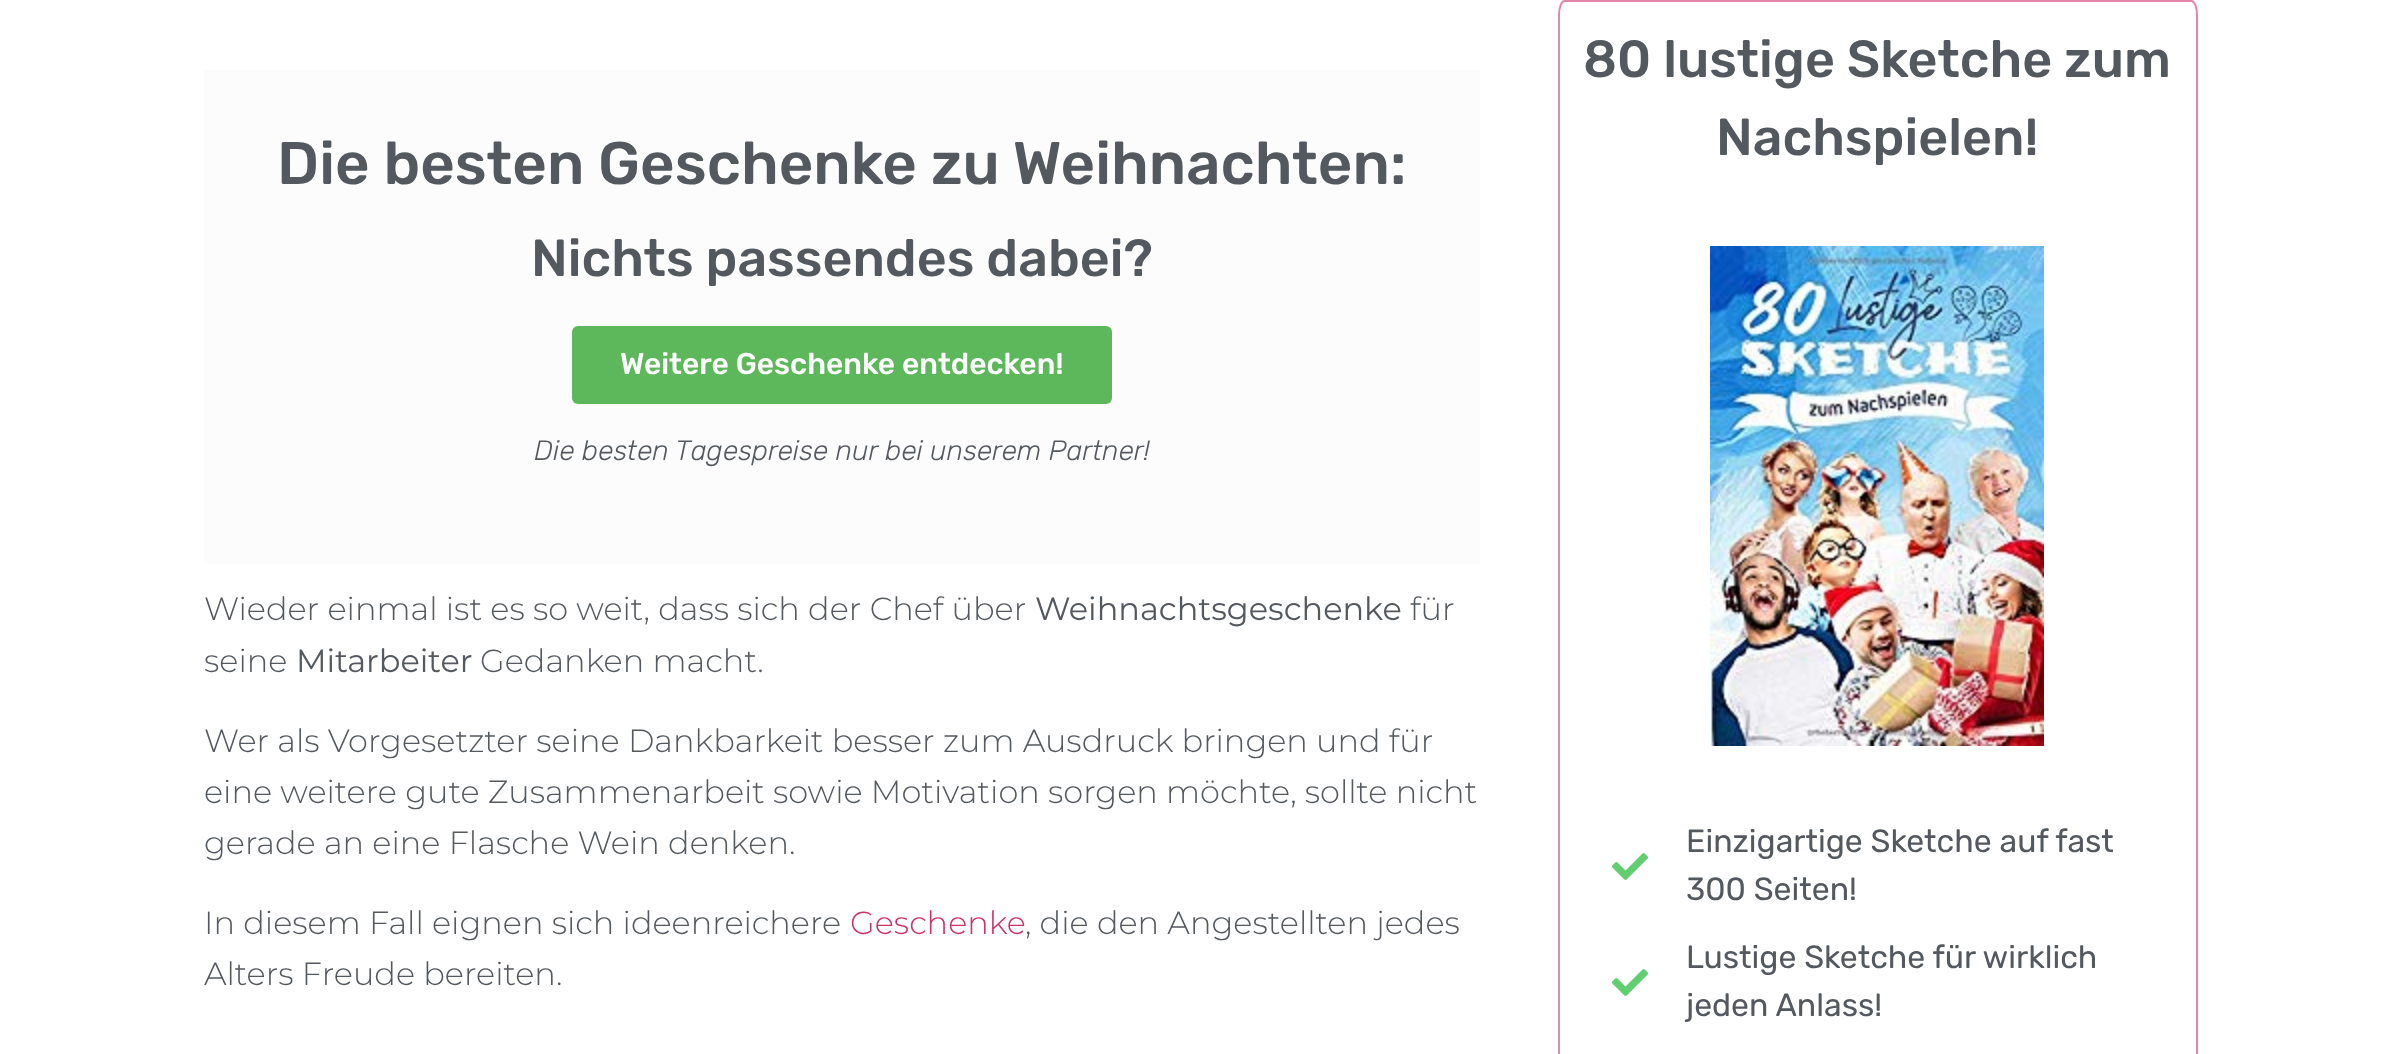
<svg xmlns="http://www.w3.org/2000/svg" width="2407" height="1054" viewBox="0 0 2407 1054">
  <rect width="100%" height="100%" fill="#fff"/>
  <path d="M204 70h1276v494H204z" fill="#fdfcfc"/>
  <rect x="572" y="326" width="540" height="78" rx="6" fill="#5db85c"/>
  <path d="M1564.5 1H2191.5C2194.5 1 2197 7.5 2197 15V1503C2197 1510.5 2194.5 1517 2191.5 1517H1564.5C1561.5 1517 1559 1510.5 1559 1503V15C1559 7.5 1561.5 1 1564.5 1Z" fill="none" stroke="#e487aa" stroke-width="2"/>
  <image x="1710" y="246" width="334" height="500" href="img/1.png"/>
  <image x="1612" y="853" width="36" height="27" href="img/2.png"/>
  <image x="1612" y="969" width="36" height="27" href="img/2.png"/>
  <text x="277" y="184" font-family="Rubik" font-size="60" font-weight="500" fill="#54595f">Die besten Geschenke zu Weihnachten:</text>
  <text x="531" y="276" font-family="Rubik" font-size="52" font-weight="500" fill="#54595f">Nichts passendes dabei?</text>
  <text x="620" y="374" font-family="Rubik" font-size="30" font-weight="500" fill="#fff">Weitere Geschenke entdecken!</text>
  <text x="534" y="460" font-family="Rubik" font-size="28" font-weight="300" font-style="italic" fill="#54595f">Die besten Tagespreise nur bei unserem Partner!</text>
  <text x="204" y="620" font-family="Montserrat" font-size="32" font-weight="300" fill="#54595f">Wieder einmal ist es so weit, dass sich der Chef über</text>
  <text x="1035" y="620" font-family="Montserrat" font-size="32" fill="#54595f">Weihnachtsgeschenke</text>
  <g font-family="Montserrat" font-size="32" font-weight="300" fill="#54595f">
    <text x="1410" y="620">für</text>
    <text x="204" y="672">seine</text>
  </g>
  <text x="296" y="672" font-family="Montserrat" font-size="32" fill="#54595f">Mitarbeiter</text>
  <g font-family="Montserrat" font-size="32" font-weight="300" fill="#54595f">
    <text x="480" y="672">Gedanken macht.</text>
    <text x="204" y="752">Wer als Vorgesetzter seine Dankbarkeit besser zum Ausdruck bringen und für</text>
    <text x="204" y="803">eine weitere gute Zusammenarbeit sowie Motivation sorgen möchte, sollte nicht</text>
    <text x="204" y="854">gerade an eine Flasche Wein denken.</text>
    <text x="204" y="934">In diesem Fall eignen sich ideenreichere</text>
  </g>
  <text x="850" y="934" font-family="Montserrat" font-size="32" font-weight="300" fill="#c36">Geschenke</text>
  <g font-family="Montserrat" font-size="32" font-weight="300" fill="#54595f">
    <text x="1025" y="934">, die den Angestellten jedes</text>
    <text x="204" y="985">Alters Freude bereiten.</text>
  </g>
  <g font-family="Rubik" font-size="52" font-weight="500" fill="#54595f">
    <text x="1583" y="77">80 lustige Sketche zum</text>
    <text x="1716" y="155">Nachspielen!</text>
  </g>
  <g font-family="Rubik" font-size="32" fill="#54595f">
    <text x="1686" y="852">Einzigartige Sketche auf fast</text>
    <text x="1686" y="900">300 Seiten!</text>
    <text x="1686" y="968">Lustige Sketche für wirklich</text>
    <text x="1686" y="1016">jeden Anlass!</text>
  </g>
</svg>
